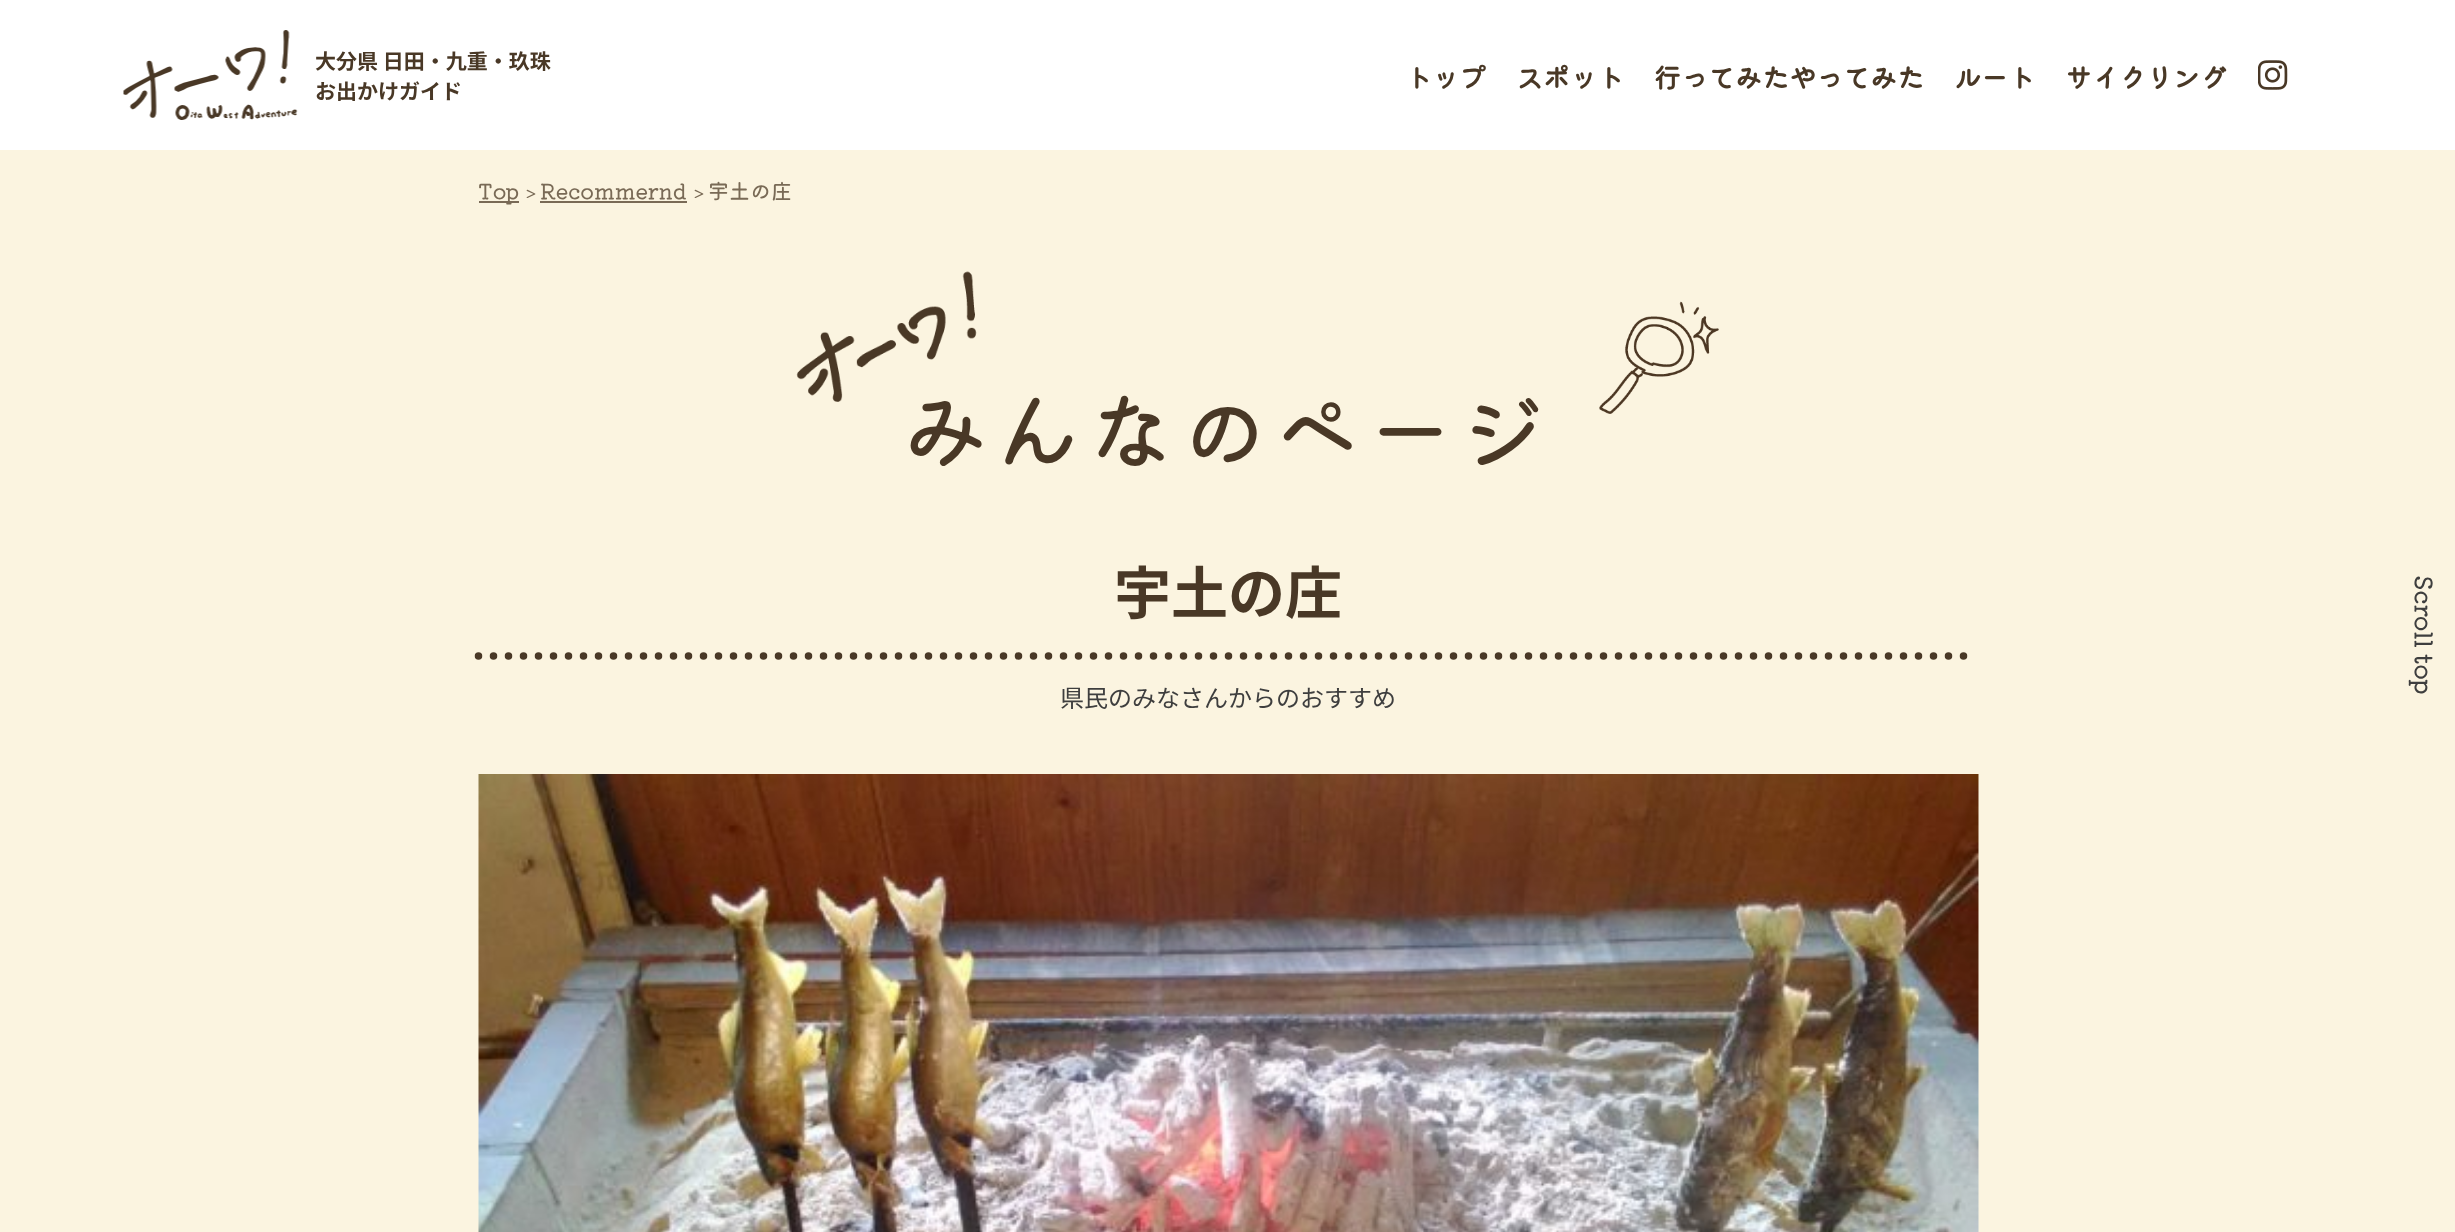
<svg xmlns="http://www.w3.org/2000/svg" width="2455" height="1232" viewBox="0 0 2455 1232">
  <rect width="100%" height="100%" fill="#fff"/>
  <image x="123" y="30" width="175" height="90" href="img/1.png"/>
  <image x="2258" y="60" width="30" height="30" href="img/2.png"/>
  <path d="M0 150h2455v1082H0z" fill="#fbf4e0"/>
  <path d="M479 201h40v2H479z" fill="#796a56"/>
  <path d="M540 201h147v2H540z" fill="#796a56"/>
  <path d="M478.5 656H1978.5" fill="none" stroke="#493826" stroke-width="7.5" stroke-linecap="round" stroke-dasharray="0 15"/>
  <image x="1599" y="301" width="120" height="113" href="img/4.png"/>
  <image x="478" y="774" width="1501" height="458" href="img/5.png"/>
  <g font-family="Noto Sans JP" font-size="21" font-weight="bold" fill="#493826">
    <text x="315" y="69">大分県 日田・九重・玖珠</text>
    <text x="315" y="99">お出かけガイド</text>
  </g>
  <g font-family="Kiwi Maru" font-size="27" font-weight="bold" fill="#493826">
    <text x="1405" y="88">トップ</text>
    <text x="1516" y="88">スポット</text>
    <text x="1654" y="88">行ってみたやってみた</text>
    <text x="1954" y="88">ルート</text>
    <text x="2065" y="88">サイクリング</text>
  </g>
  <text x="478" y="199" font-family="Kiwi Maru" font-size="21" font-weight="500" fill="#796a56">Top</text>
  <text x="526" y="200" font-family="Kiwi Maru" font-size="17" font-weight="500" fill="#796a56">&gt;</text>
  <text x="540" y="199" font-family="Kiwi Maru" font-size="21" font-weight="500" fill="#796a56">Recommernd</text>
  <text x="694" y="200" font-family="Kiwi Maru" font-size="17" font-weight="500" fill="#796a56">&gt;</text>
  <text x="708" y="199" font-family="Kiwi Maru" font-size="21" font-weight="500" fill="#796a56">宇土の庄</text>
  <text x="902" y="464" font-family="Kiwi Maru" font-size="87" font-weight="500" letter-spacing="6" fill="#493826">みんなのページ</text>
  <image x="796" y="271" width="181" height="131" href="img/3.png"/>
  <text x="1114" y="614" font-family="Noto Sans JP" font-size="57" font-weight="bold" fill="#493826">宇土の庄</text>
  <text x="1060" y="707" font-family="Noto Sans JP" font-size="24" fill="#3e3e3e">県民のみなさんからのおすすめ</text>
  <text x="2415" y="575" transform="rotate(90 2415 575)" font-family="Kiwi Maru" font-size="24" font-weight="500" fill="#3e3e3e">Scroll top</text>
</svg>
